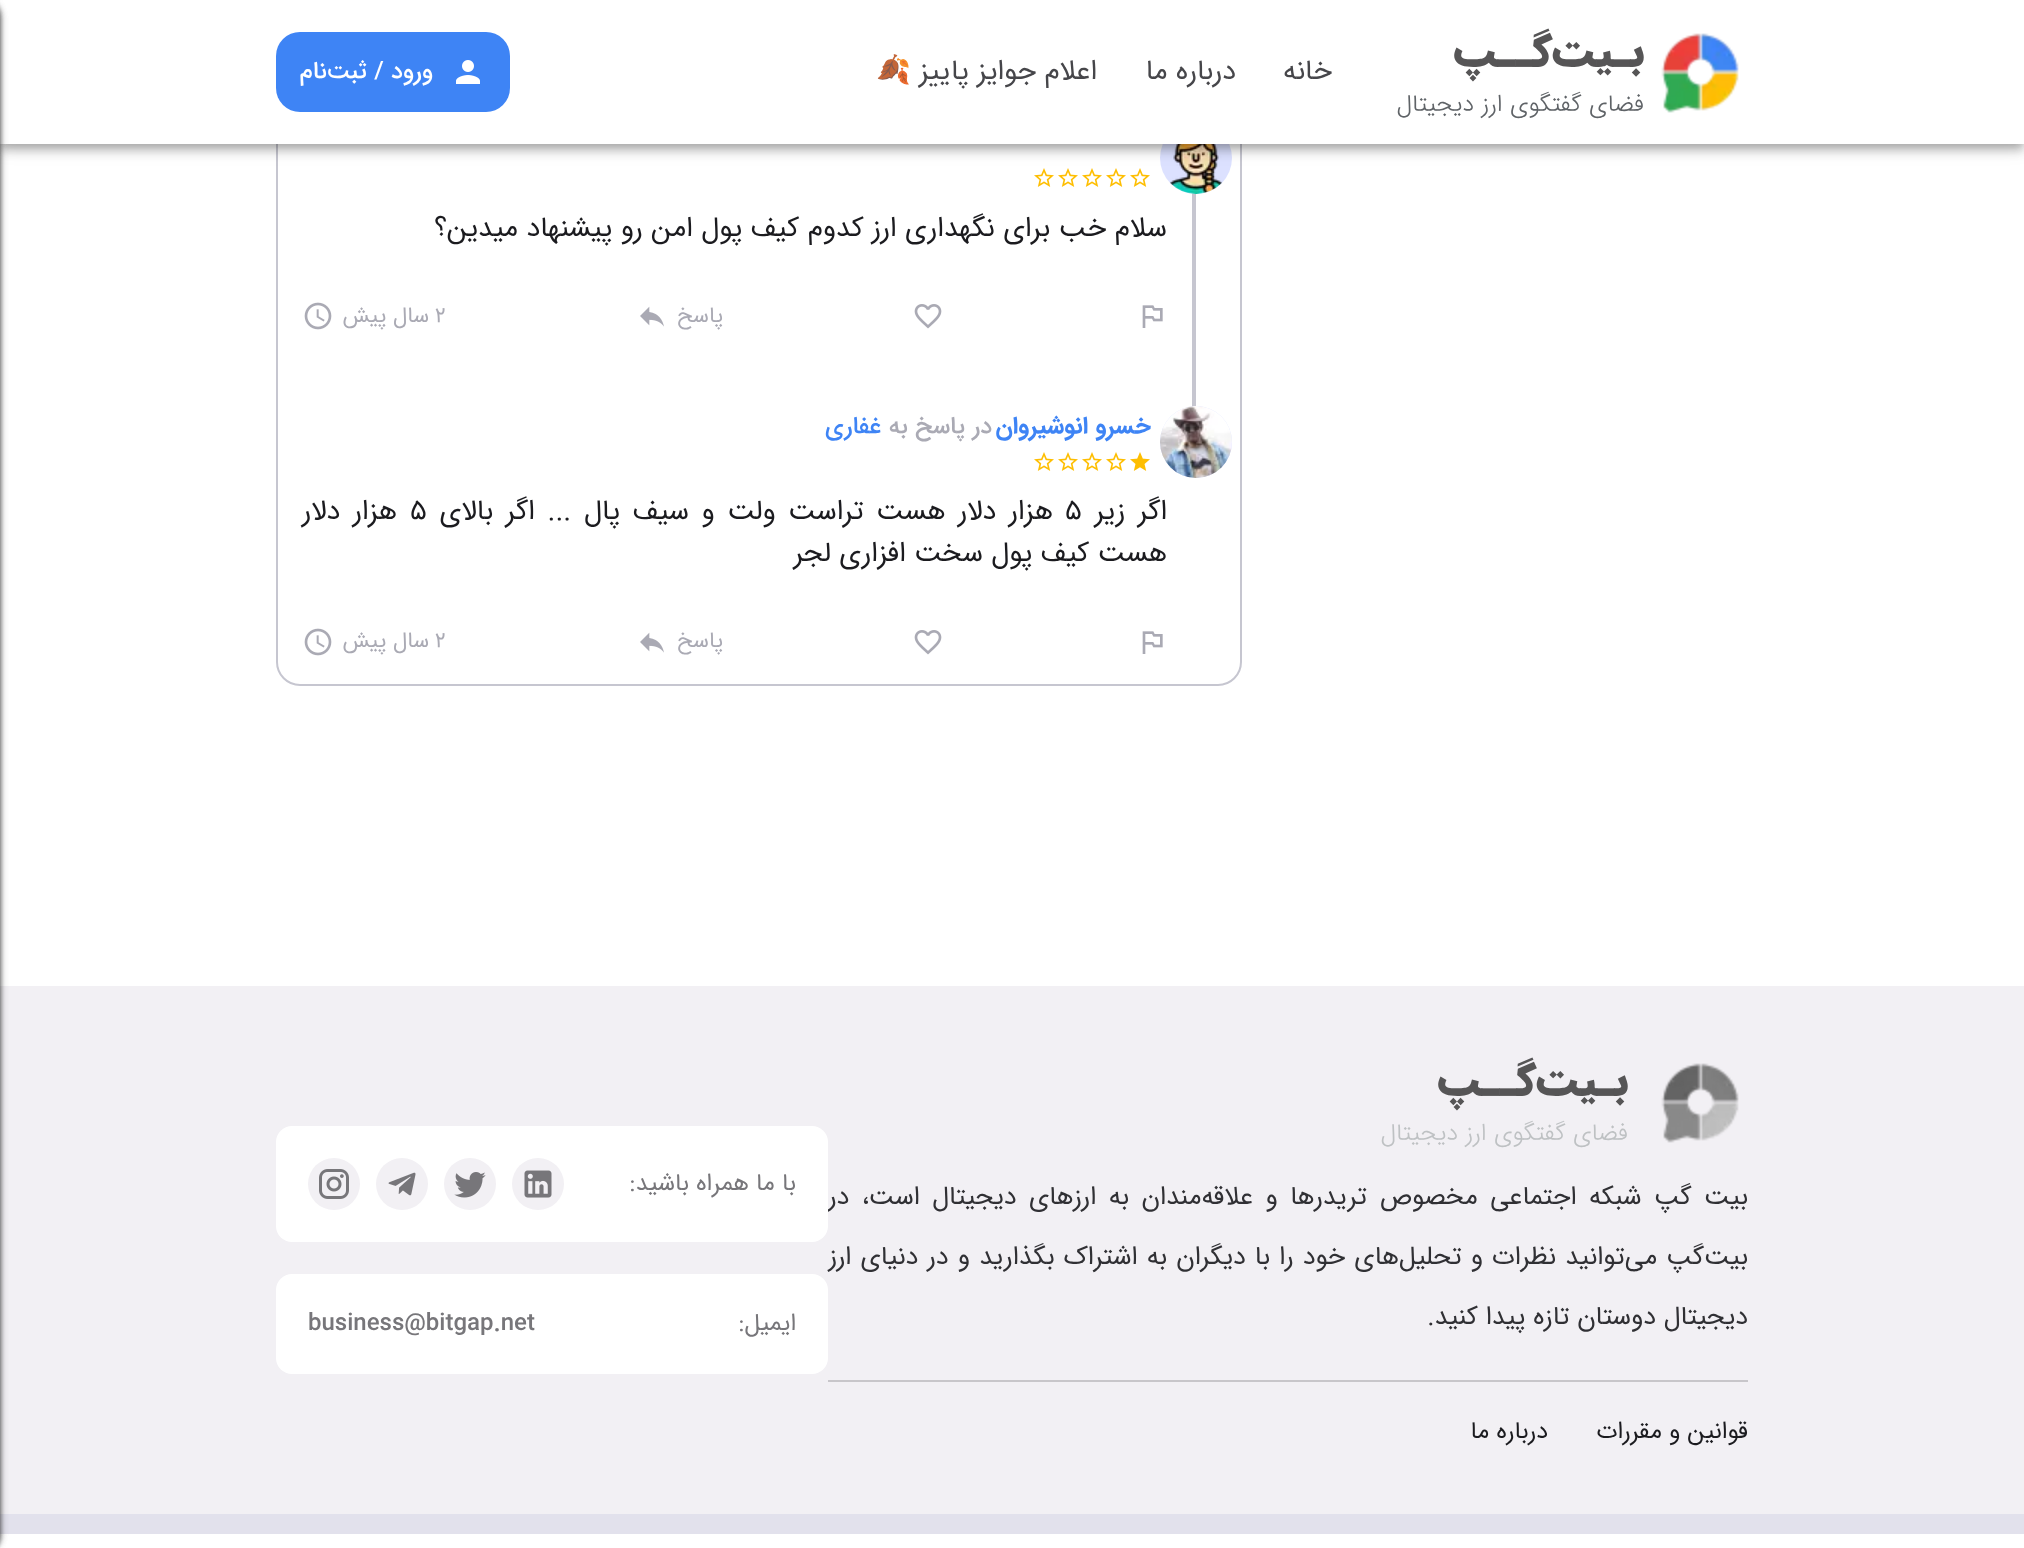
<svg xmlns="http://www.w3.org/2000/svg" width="2024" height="1548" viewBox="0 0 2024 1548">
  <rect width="100%" height="100%" fill="#fff"/>
  <rect x="277" y="-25" width="964" height="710" rx="23" fill="none" stroke="#c6c6d0" stroke-width="2"/>
  <path d="M1192 192h4v220H1192z" fill="#c6c6d0"/>
  <circle cx="1196" cy="158" r="36" fill="#dce1ff"/>
  <image x="1170" y="144" width="52" height="50" href="img/3.png"/>
  <path d="M2 6h2020v140H2z" fill="#00000033" filter="blur(4px)"/>
  <image x="1130" y="168" width="20" height="19" href="img/4.png"/>
  <image x="1106" y="168" width="20" height="19" href="img/4.png"/>
  <image x="1082" y="168" width="20" height="19" href="img/4.png"/>
  <image x="1058" y="168" width="20" height="19" href="img/4.png"/>
  <image x="1034" y="168" width="20" height="19" href="img/4.png"/>
  <path d="M0 2h2024v144H0z" fill="#0000001f" filter="blur(10px)"/>
  <path d="M0 8h2024v144H0z" fill="#00000024" filter="blur(5px)"/>
  <path d="M0 0h2024v144H0z" fill="#fff"/>
  <path d="M0 986h2024v528H0z" fill="#f2f0f4"/>
  <path d="M0 1514h2024v20H0z" fill="#e2e1ec"/>
  <rect x="-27" width="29" height="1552" rx="18" fill="#00000026" filter="blur(3px)"/>
  <rect x="-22" y="2" width="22" height="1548" rx="16" fill="#0000004d" filter="blur(2px)"/>
  <image x="1661" y="33" width="78" height="80" href="img/1.png"/>
  <rect x="276" y="32" width="234" height="80" rx="24" fill="#3e84f5"/>
  <image x="456" y="60" width="24" height="24" href="img/2.png"/>
  <image x="1142" y="305" width="21" height="23" href="img/5.png"/>
  <image x="914" y="304" width="28" height="25" href="img/6.png"/>
  <image x="640" y="306" width="24" height="21" href="img/7.png"/>
  <image x="304" y="302" width="28" height="28" href="img/8.png"/>
  <circle cx="1196" cy="442" r="36" fill="#dce1ff"/>
  <image x="1160" y="406" width="72" height="72" href="img/9.png"/>
  <image x="1130" y="452" width="20" height="19" href="img/10.png"/>
  <image x="1106" y="452" width="20" height="19" href="img/4.png"/>
  <image x="1082" y="452" width="20" height="19" href="img/4.png"/>
  <image x="1058" y="452" width="20" height="19" href="img/4.png"/>
  <image x="1034" y="452" width="20" height="19" href="img/4.png"/>
  <image x="1142" y="631" width="21" height="23" href="img/5.png"/>
  <image x="914" y="630" width="28" height="25" href="img/6.png"/>
  <image x="640" y="632" width="24" height="21" href="img/7.png"/>
  <image x="304" y="628" width="28" height="28" href="img/8.png"/>
  <image x="1661" y="1063" width="78" height="80" href="img/11.png"/>
  <path d="M828 1380h920v2H828z" fill="#c8c6ca"/>
  <rect x="276" y="1274" width="552" height="100" rx="16" fill="#fff"/>
  <rect x="-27" width="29" height="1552" rx="18" fill="#00000026" filter="blur(3px)"/>
  <rect x="-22" y="2" width="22" height="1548" rx="16" fill="#0000004d" filter="blur(2px)"/>
  <text x="1644" y="65" font-family="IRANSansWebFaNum" font-size="44" font-weight="900" direction="rtl" fill="#565556">بـیت‌گــپ</text>
  <text x="1644" y="111" font-family="IRANSansWebFaNum" font-size="24" font-weight="300" direction="rtl" fill="#5f6367">فضای گفتگوی ارز دیجیتال</text>
  <g font-family="IRANSansWebFaNum" font-size="28" direction="rtl" fill="#46464a">
    <text x="1332" y="79">خانه</text>
    <text x="1236" y="79">درباره ما</text>
    <text x="1097" y="79">اعلام جوایز پاییز</text>
  </g>
  <text x="911" y="79" font-family="Noto Color Emoji" font-size="28" direction="rtl" fill="#46464a">🍂</text>
  <text x="433" y="78" font-family="IRANSansWebFaNum" font-size="24" font-weight="500" direction="rtl" fill="#fff">ورود / ثبت‌نام</text>
  <text x="1167" y="236" font-family="IRANSansWebFaNum" font-size="28" direction="rtl" fill="#1b1b1f">سلام خب برای نگهداری ارز کدوم کیف پول امن رو پیشنهاد میدین؟</text>
  <text x="723" y="322" font-family="IRANSansWebFaNum" font-size="22" direction="rtl" fill="#aaaab4">پاسخ</text>
  <text x="435" y="322" font-family="IRANSansWebFaNum" font-size="22" fill="#aaaab4">۲</text>
  <text x="429" y="322" font-family="IRANSansWebFaNum" font-size="22" direction="rtl" fill="#aaaab4">سال پیش</text>
  <text x="1151" y="433" font-family="IRANSansWebFaNum" font-size="24" font-weight="bold" direction="rtl" fill="#3e84f5">خسرو انوشیروان</text>
  <text x="992" y="433" font-family="IRANSansWebFaNum" font-size="24" font-weight="500" direction="rtl" fill="#aaaab4">در پاسخ به</text>
  <text x="881" y="433" font-family="IRANSansWebFaNum" font-size="24" font-weight="500" direction="rtl" fill="#3e84f5">غفاری</text>
  <text x="1167" y="519" word-spacing="4.25" font-family="IRANSansWebFaNum" font-size="28" direction="rtl" fill="#1b1b1f">اگر زیر</text>
  <text x="1065" y="519" font-family="IRANSansWebFaNum" font-size="28" fill="#1b1b1f">۵</text>
  <text x="1053" y="519" word-spacing="4.25" font-family="IRANSansWebFaNum" font-size="28" direction="rtl" fill="#1b1b1f">هزار دلار هست تراست ولت و سیف پال ... اگر بالای</text>
  <text x="410" y="519" font-family="IRANSansWebFaNum" font-size="28" fill="#1b1b1f">۵</text>
  <g font-family="IRANSansWebFaNum" font-size="28" direction="rtl" fill="#1b1b1f">
    <text x="397" y="519" word-spacing="4.25">هزار دلار</text>
    <text x="1167" y="561">هست کیف پول سخت افزاری لجر</text>
  </g>
  <text x="723" y="647" font-family="IRANSansWebFaNum" font-size="22" direction="rtl" fill="#aaaab4">پاسخ</text>
  <text x="435" y="647" font-family="IRANSansWebFaNum" font-size="22" fill="#aaaab4">۲</text>
  <text x="429" y="647" font-family="IRANSansWebFaNum" font-size="22" direction="rtl" fill="#aaaab4">سال پیش</text>
  <text x="1628" y="1094" font-family="IRANSansWebFaNum" font-size="44" font-weight="900" direction="rtl" fill="#565556">بـیت‌گــپ</text>
  <text x="1628" y="1140" font-family="IRANSansWebFaNum" font-size="24" font-weight="300" direction="rtl" fill="#bec1c3">فضای گفتگوی ارز دیجیتال</text>
  <g font-family="IRANSansWebFaNum" font-size="26" direction="rtl" fill="#303034">
    <text x="1748" y="1204" word-spacing="4.6">بیت گپ شبکه اجتماعی مخصوص تریدرها و علاقه‌مندان به ارزهای دیجیتال است، در</text>
    <text x="1748" y="1264" word-spacing="1.3">بیت‌گپ می‌توانید نظرات و تحلیل‌های خود را با دیگران به اشتراک بگذارید و در دنیای ارز</text>
    <text x="1748" y="1324">دیجیتال دوستان تازه پیدا کنید.</text>
  </g>
  <g font-family="IRANSansWebFaNum" font-size="24" direction="rtl" fill="#1b1b1f">
    <text x="1748" y="1438">قوانین و مقررات</text>
    <text x="1548" y="1438">درباره ما</text>
  </g>
  <rect x="276" y="1126" width="552" height="116" rx="16" fill="#fff"/>
  <text x="796" y="1190" font-family="IRANSansWebFaNum" font-size="24" direction="rtl" fill="#77767a">با ما همراه باشید:</text>
  <circle cx="538" cy="1184" r="26" fill="#f2f0f4"/>
  <image x="524" y="1170" width="28" height="28" href="img/12.png"/>
  <circle cx="470" cy="1184" r="26" fill="#f2f0f4"/>
  <image x="454" y="1172" width="32" height="26" href="img/13.png"/>
  <circle cx="402" cy="1184" r="26" fill="#f2f0f4"/>
  <image x="388" y="1172" width="28" height="24" href="img/14.png"/>
  <circle cx="334" cy="1184" r="26" fill="#f2f0f4"/>
  <image x="319" y="1169" width="30" height="30" href="img/15.png"/>
  <text x="796" y="1330" font-family="IRANSansWebFaNum" font-size="24" direction="rtl" fill="#77767a">ایمیل:</text>
  <text x="308" y="1330" font-family="IRANSansWebFaNum" font-size="24" font-weight="500" fill="#77767a">business@bitgap.net</text>
</svg>
